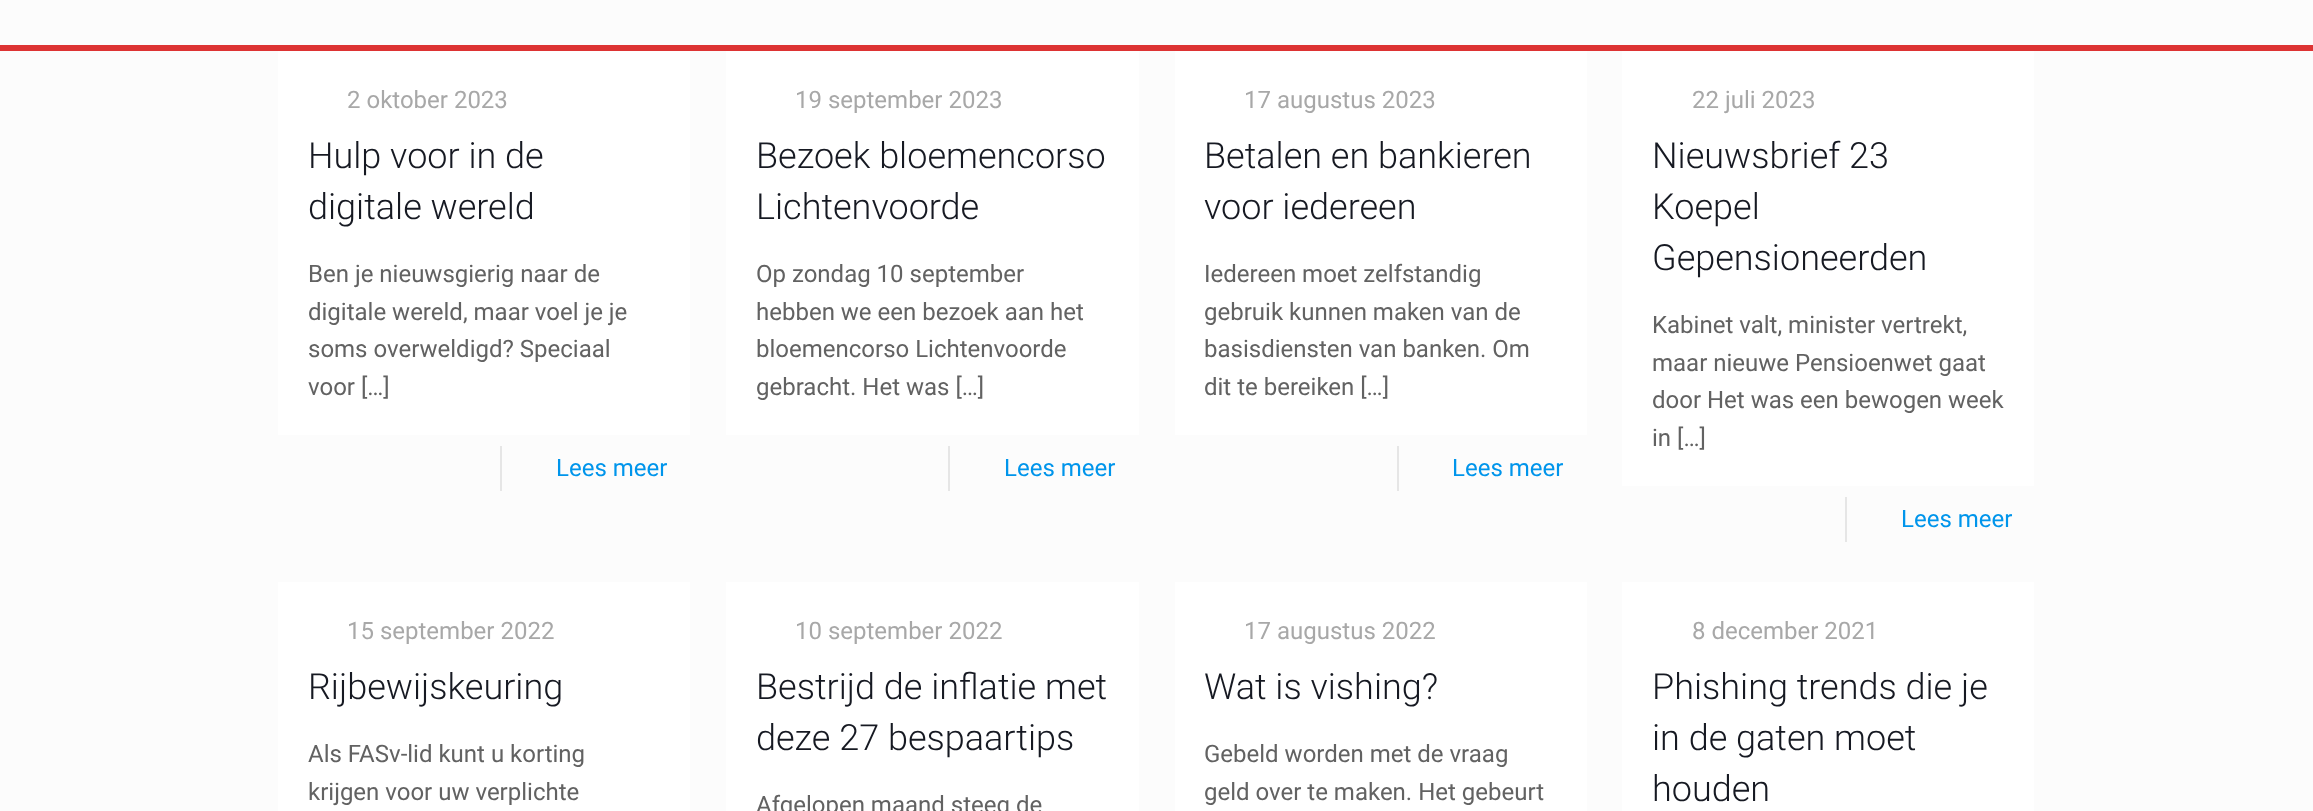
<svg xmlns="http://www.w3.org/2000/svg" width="2313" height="811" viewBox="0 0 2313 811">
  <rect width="100%" height="100%" fill="#fcfcfc"/>
  <path d="M0 45h2313v6H0z" fill="#d33"/>
  <path d="M278 51h412v384H278z" fill="#fff"/>
  <path d="M500 446h2v45H500z" fill="#e6e6e6"/>
  <path d="M726 51h413v384H726z" fill="#fff"/>
  <path d="M948 446h2v45H948z" fill="#e6e6e6"/>
  <path d="M1175 51h412v384H1175z" fill="#fff"/>
  <path d="M1397 446h2v45H1397z" fill="#e6e6e6"/>
  <path d="M1622 51h412v435H1622z" fill="#fff"/>
  <path d="M1845 497h2v45H1845z" fill="#e6e6e6"/>
  <path d="M278 582h412v229H278z" fill="#fff"/>
  <path d="M726 582h413v229H726z" fill="#fff"/>
  <path d="M1175 582h412v229H1175z" fill="#fff"/>
  <path d="M1622 582h412v229H1622z" fill="#fff"/>
  <text x="347" y="108" font-family="Roboto" font-size="24" fill="#a8a8a8">2 oktober 2023</text>
  <g font-family="Roboto" font-size="36" font-weight="300" fill="#161922">
    <text x="308" y="168">Hulp voor in de</text>
    <text x="308" y="219">digitale wereld</text>
  </g>
  <g font-family="Roboto" font-size="24" fill="#626262">
    <text x="308" y="282">Ben je nieuwsgierig naar de</text>
    <text x="308" y="320">digitale wereld, maar voel je je</text>
    <text x="308" y="357">soms overweldigd? Speciaal</text>
    <text x="308" y="395">voor […]</text>
  </g>
  <text x="556" y="476" font-family="Roboto" font-size="24" fill="#0095eb">Lees meer</text>
  <text x="795" y="108" font-family="Roboto" font-size="24" fill="#a8a8a8">19 september 2023</text>
  <g font-family="Roboto" font-size="36" font-weight="300" fill="#161922">
    <text x="756" y="168">Bezoek bloemencorso</text>
    <text x="756" y="219">Lichtenvoorde</text>
  </g>
  <g font-family="Roboto" font-size="24" fill="#626262">
    <text x="756" y="282">Op zondag 10 september</text>
    <text x="756" y="320">hebben we een bezoek aan het</text>
    <text x="756" y="357">bloemencorso Lichtenvoorde</text>
    <text x="756" y="395">gebracht. Het was […]</text>
  </g>
  <text x="1004" y="476" font-family="Roboto" font-size="24" fill="#0095eb">Lees meer</text>
  <text x="1244" y="108" font-family="Roboto" font-size="24" fill="#a8a8a8">17 augustus 2023</text>
  <g font-family="Roboto" font-size="36" font-weight="300" fill="#161922">
    <text x="1204" y="168">Betalen en bankieren</text>
    <text x="1204" y="219">voor iedereen</text>
  </g>
  <g font-family="Roboto" font-size="24" fill="#626262">
    <text x="1204" y="282">Iedereen moet zelfstandig</text>
    <text x="1204" y="320">gebruik kunnen maken van de</text>
    <text x="1204" y="357">basisdiensten van banken. Om</text>
    <text x="1204" y="395">dit te bereiken […]</text>
  </g>
  <text x="1452" y="476" font-family="Roboto" font-size="24" fill="#0095eb">Lees meer</text>
  <text x="1692" y="108" font-family="Roboto" font-size="24" fill="#a8a8a8">22 juli 2023</text>
  <g font-family="Roboto" font-size="36" font-weight="300" fill="#161922">
    <text x="1652" y="168">Nieuwsbrief 23</text>
    <text x="1652" y="219">Koepel</text>
    <text x="1652" y="270">Gepensioneerden</text>
  </g>
  <g font-family="Roboto" font-size="24" fill="#626262">
    <text x="1652" y="333">Kabinet valt, minister vertrekt,</text>
    <text x="1652" y="371">maar nieuwe Pensioenwet gaat</text>
    <text x="1652" y="408">door Het was een bewogen week</text>
    <text x="1652" y="446">in […]</text>
  </g>
  <text x="1901" y="527" font-family="Roboto" font-size="24" fill="#0095eb">Lees meer</text>
  <text x="347" y="639" font-family="Roboto" font-size="24" fill="#a8a8a8">15 september 2022</text>
  <text x="308" y="699" font-family="Roboto" font-size="36" font-weight="300" fill="#161922">Rijbewijskeuring</text>
  <g font-family="Roboto" font-size="24" fill="#626262">
    <text x="308" y="762">Als FASv-lid kunt u korting</text>
    <text x="308" y="800">krijgen voor uw verplichte</text>
  </g>
  <text x="795" y="639" font-family="Roboto" font-size="24" fill="#a8a8a8">10 september 2022</text>
  <g font-family="Roboto" font-size="36" font-weight="300" fill="#161922">
    <text x="756" y="699">Bestrijd de inflatie met</text>
    <text x="756" y="750">deze 27 bespaartips</text>
  </g>
  <text x="756" y="813" font-family="Roboto" font-size="24" fill="#626262">Afgelopen maand steeg de</text>
  <text x="1244" y="639" font-family="Roboto" font-size="24" fill="#a8a8a8">17 augustus 2022</text>
  <text x="1204" y="699" font-family="Roboto" font-size="36" font-weight="300" fill="#161922">Wat is vishing?</text>
  <g font-family="Roboto" font-size="24" fill="#626262">
    <text x="1204" y="762">Gebeld worden met de vraag</text>
    <text x="1204" y="800">geld over te maken. Het gebeurt</text>
  </g>
  <text x="1692" y="639" font-family="Roboto" font-size="24" fill="#a8a8a8">8 december 2021</text>
  <g font-family="Roboto" font-size="36" font-weight="300" fill="#161922">
    <text x="1652" y="699">Phishing trends die je</text>
    <text x="1652" y="750">in de gaten moet</text>
    <text x="1652" y="801">houden</text>
  </g>
</svg>
